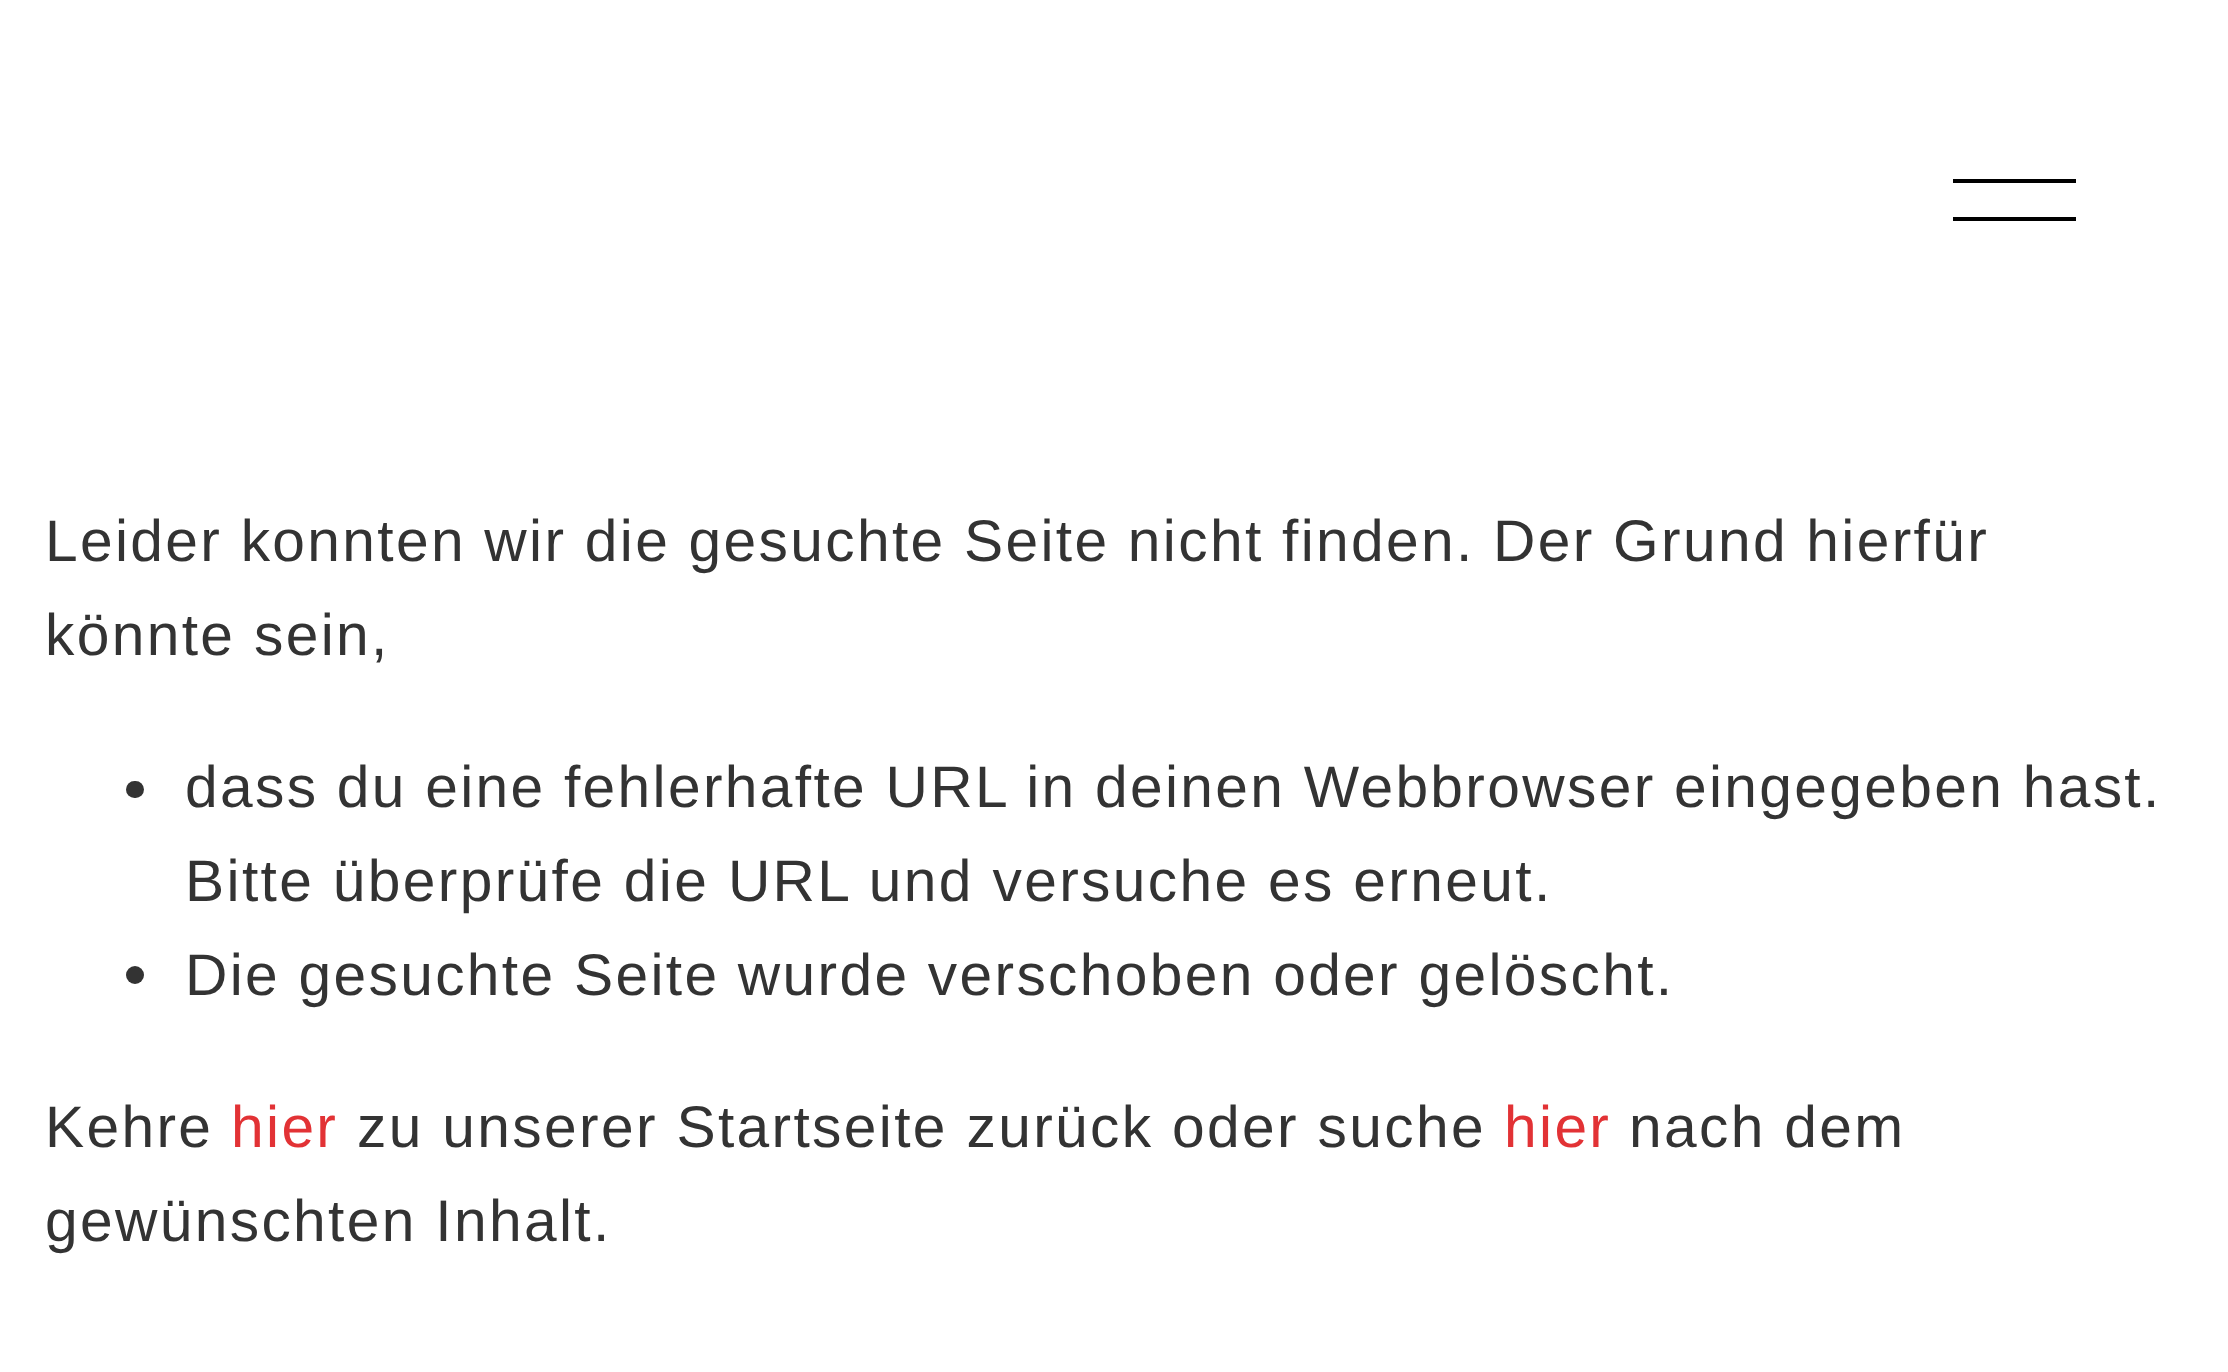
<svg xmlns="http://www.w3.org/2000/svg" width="2228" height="1372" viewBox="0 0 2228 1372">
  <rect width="100%" height="100%" fill="#fff"/>
  <path d="M1953 179h123v4H1953z" fill="#000"/>
  <path d="M1953 217h123v4H1953z" fill="#000"/>
  <rect x="126" y="781" width="18" height="17" rx="8.5" fill="#333"/>
  <circle cx="135" cy="975" r="9" fill="#333"/>
  <g font-family="Liberation Sans" font-size="58.7" letter-spacing="2.35" fill="#333">
    <text x="45" y="561" word-spacing="-0.25">Leider konnten wir die gesuchte Seite nicht finden. Der Grund hierfür</text>
    <text x="45" y="655">könnte sein,</text>
    <text x="185" y="807" word-spacing="-0.25">dass du eine fehlerhafte URL in deinen Webbrowser eingegeben hast.</text>
    <text x="185" y="901">Bitte überprüfe die URL und versuche es erneut.</text>
    <text x="185" y="995" word-spacing="-0.25">Die gesuchte Seite wurde verschoben oder gelöscht.</text>
    <text x="45" y="1147">Kehre</text>
  </g>
  <text x="231" y="1147" font-family="Liberation Sans" font-size="58.7" letter-spacing="2.35" fill="#e23235">hier</text>
  <text x="357" y="1147" font-family="Liberation Sans" font-size="58.7" letter-spacing="2.35" fill="#333">zu unserer Startseite zurück oder suche</text>
  <text x="1504" y="1147" font-family="Liberation Sans" font-size="58.7" letter-spacing="2.35" fill="#e23235">hier</text>
  <g font-family="Liberation Sans" font-size="58.7" letter-spacing="2.35" fill="#333">
    <text x="1629" y="1147">nach dem</text>
    <text x="45" y="1241">gewünschten Inhalt.</text>
  </g>
</svg>
